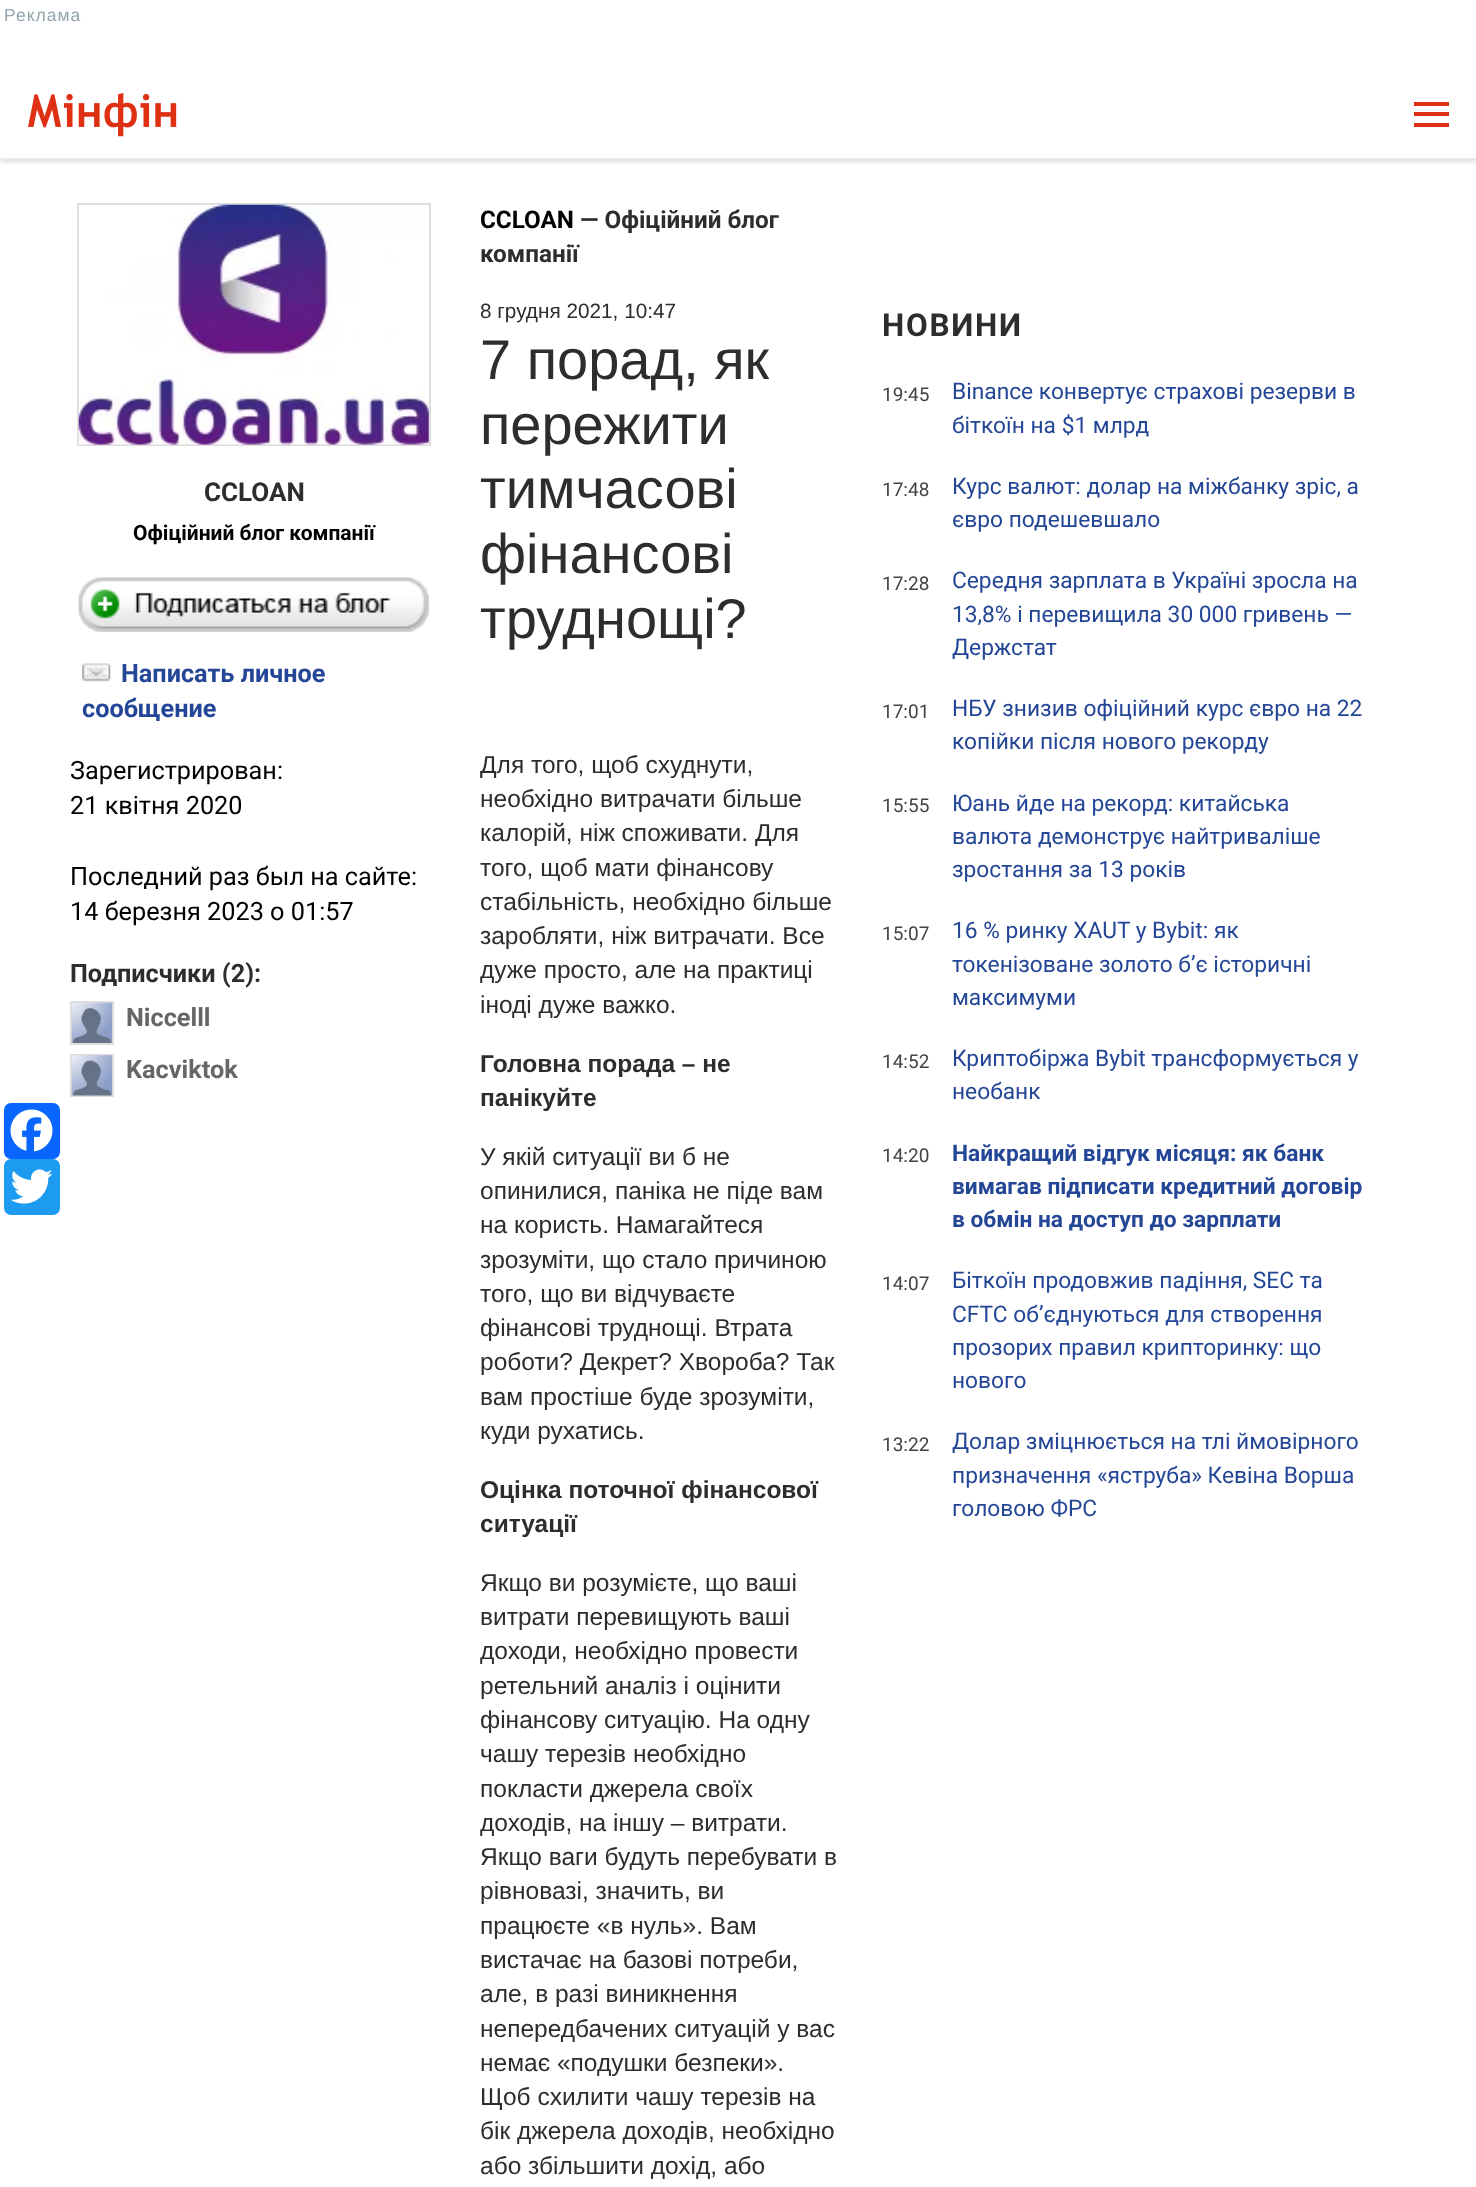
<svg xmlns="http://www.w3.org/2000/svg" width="1476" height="2187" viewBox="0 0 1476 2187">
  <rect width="100%" height="100%" fill="#fff"/>
  <path d="M0 158h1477v4H0z" fill="#00000026" filter="blur(2px)"/>
  <path d="M0 155h1476v3H0z" fill="#fff"/>
  <image x="28" y="93" width="149" height="44" href="img/1.png"/>
  <path d="M1414 102h35v4H1414z" fill="#df3014"/>
  <path d="M1414 112h35v4H1414z" fill="#df3014"/>
  <path d="M1414 123h35v4H1414z" fill="#df3014"/>
  <rect x="4" y="1103" width="56" height="56" rx="7" fill="#0866ff"/>
  <image x="10" y="1109" width="43" height="43" href="img/2.png"/>
  <rect x="4" y="1159" width="56" height="56" rx="7" fill="#1d9bf0"/>
  <image x="10" y="1169" width="43" height="35" href="img/3.png"/>
  <path d="M78 204h352v241H78z" fill="none" stroke="#ddd" stroke-width="2"/>
  <image x="78" y="204" width="351" height="241" href="img/4.png"/>
  <image x="78" y="577" width="351" height="55" href="img/5.png"/>
  <image x="82" y="663" width="29" height="19" href="img/6.png"/>
  <path d="M71 1002h42v42H71z" fill="none" stroke="#ddd" stroke-width="2"/>
  <image x="71" y="1002" width="41" height="41" href="img/7.png"/>
  <path d="M71 1055h42v41H71z" fill="none" stroke="#ddd" stroke-width="2"/>
  <image x="71" y="1055" width="41" height="41" href="img/8.png"/>
  <text x="4" y="21" font-family="Liberation Sans" font-size="17.5" letter-spacing="1" fill="#93a4ac">Реклама</text>
  <text x="204" y="501" font-family="Roboto" font-size="26" font-weight="bold" fill="#2d2d2d">CCLOAN</text>
  <text x="133" y="540" font-family="Roboto" font-size="21" font-weight="bold" fill="#000">Офіційний блог компанії</text>
  <g font-family="Roboto" font-size="25.25" font-weight="bold" fill="#244696">
    <text x="121" y="682">Написать личное</text>
    <text x="82" y="717">сообщение</text>
  </g>
  <g font-family="Roboto" font-size="25.25" fill="#000">
    <text x="70" y="779">Зарегистрирован:</text>
    <text x="70" y="814">21 квітня 2020</text>
    <text x="70" y="885">Последний раз был на сайте:</text>
    <text x="70" y="920">14 березня 2023 о 01:57</text>
  </g>
  <text x="70" y="982" font-family="Roboto" font-size="25.25" font-weight="bold" fill="#2d2d2d">Подписчики (2):</text>
  <g font-family="Roboto" font-size="25.25" font-weight="bold" fill="#666">
    <text x="126" y="1026">Niccelll</text>
    <text x="126" y="1078">Kacviktok</text>
  </g>
  <text x="480" y="228" font-family="Roboto" font-size="24.25" font-weight="bold" fill="#000">CCLOAN</text>
  <g font-family="Roboto" font-size="24.25" font-weight="bold" fill="#2d2d2d">
    <text x="580" y="228">— Офіційний блог</text>
    <text x="480" y="262">компанії</text>
  </g>
  <text x="480" y="318" font-family="Liberation Sans" font-size="20.75" fill="#2d2d2d">8 грудня 2021, 10:47</text>
  <g font-family="Liberation Sans" font-size="56" fill="#2d2d2d">
    <text x="480" y="379">7 порад, як</text>
    <text x="480" y="444">пережити</text>
    <text x="480" y="508">тимчасові</text>
    <text x="480" y="573">фінансові</text>
    <text x="480" y="638">труднощі?</text>
  </g>
  <g font-family="Liberation Sans" font-size="24.5" fill="#2d2d2d">
    <text x="480" y="773">Для того, щоб схуднути,</text>
    <text x="480" y="807">необхідно витрачати більше</text>
    <text x="480" y="841">калорій, ніж споживати. Для</text>
    <text x="480" y="876">того, щоб мати фінансову</text>
    <text x="480" y="910">стабільність, необхідно більше</text>
    <text x="480" y="944">заробляти, ніж витрачати. Все</text>
    <text x="480" y="978">дуже просто, але на практиці</text>
    <text x="480" y="1013">іноді дуже важко.</text>
  </g>
  <g font-family="Liberation Sans" font-size="24.5" font-weight="bold" fill="#2d2d2d">
    <text x="480" y="1072">Головна порада – не</text>
    <text x="480" y="1106">панікуйте</text>
  </g>
  <g font-family="Liberation Sans" font-size="24.5" fill="#2d2d2d">
    <text x="480" y="1165">У якій ситуації ви б не</text>
    <text x="480" y="1199">опинилися, паніка не піде вам</text>
    <text x="480" y="1233">на користь. Намагайтеся</text>
    <text x="480" y="1268">зрозуміти, що стало причиною</text>
    <text x="480" y="1302">того, що ви відчуваєте</text>
    <text x="480" y="1336">фінансові труднощі. Втрата</text>
    <text x="480" y="1370">роботи? Декрет? Хвороба? Так</text>
    <text x="480" y="1405">вам простіше буде зрозуміти,</text>
    <text x="480" y="1439">куди рухатись.</text>
  </g>
  <g font-family="Liberation Sans" font-size="24.5" font-weight="bold" fill="#2d2d2d">
    <text x="480" y="1498">Оцінка поточної фінансової</text>
    <text x="480" y="1532">ситуації</text>
  </g>
  <g font-family="Liberation Sans" font-size="24.5" fill="#2d2d2d">
    <text x="480" y="1591">Якщо ви розумієте, що ваші</text>
    <text x="480" y="1625">витрати перевищують ваші</text>
    <text x="480" y="1659">доходи, необхідно провести</text>
    <text x="480" y="1694">ретельний аналіз і оцінити</text>
    <text x="480" y="1728">фінансову ситуацію. На одну</text>
    <text x="480" y="1762">чашу терезів необхідно</text>
    <text x="480" y="1797">покласти джерела своїх</text>
    <text x="480" y="1831">доходів, на іншу – витрати.</text>
    <text x="480" y="1865">Якщо ваги будуть перебувати в</text>
    <text x="480" y="1899">рівновазі, значить, ви</text>
    <text x="480" y="1934">працюєте «в нуль». Вам</text>
    <text x="480" y="1968">вистачає на базові потреби,</text>
    <text x="480" y="2002">але, в разі виникнення</text>
    <text x="480" y="2037">непередбачених ситуацій у вас</text>
    <text x="480" y="2071">немає «подушки безпеки».</text>
    <text x="480" y="2105">Щоб схилити чашу терезів на</text>
    <text x="480" y="2139">бік джерела доходів, необхідно</text>
    <text x="480" y="2174">або збільшити дохід, або</text>
  </g>
  <text x="882" y="336" font-family="Roboto" font-size="31.5" font-weight="bold" letter-spacing="1.75" fill="#2d2d2d">НОВИНИ</text>
  <text x="882" y="401" font-family="Roboto" font-size="19" fill="#434343">19:45</text>
  <g font-family="Roboto" font-size="22.75" fill="#244696">
    <text x="952" y="399">Binance конвертує страхові резерви в</text>
    <text x="952" y="433">біткоїн на $1 млрд</text>
  </g>
  <text x="882" y="496" font-family="Roboto" font-size="19" fill="#434343">17:48</text>
  <g font-family="Roboto" font-size="22.75" fill="#244696">
    <text x="952" y="494">Курс валют: долар на міжбанку зріс, а</text>
    <text x="952" y="527">євро подешевшало</text>
  </g>
  <text x="882" y="590" font-family="Roboto" font-size="19" fill="#434343">17:28</text>
  <g font-family="Roboto" font-size="22.75" fill="#244696">
    <text x="952" y="588">Середня зарплата в Україні зросла на</text>
    <text x="952" y="622">13,8% і перевищила 30 000 гривень —</text>
    <text x="952" y="655">Держстат</text>
  </g>
  <text x="882" y="718" font-family="Roboto" font-size="19" fill="#434343">17:01</text>
  <g font-family="Roboto" font-size="22.75" fill="#244696">
    <text x="952" y="716">НБУ знизив офіційний курс євро на 22</text>
    <text x="952" y="749">копійки після нового рекорду</text>
  </g>
  <text x="882" y="812" font-family="Roboto" font-size="19" fill="#434343">15:55</text>
  <g font-family="Roboto" font-size="22.75" fill="#244696">
    <text x="952" y="811">Юань йде на рекорд: китайська</text>
    <text x="952" y="844">валюта демонструє найтриваліше</text>
    <text x="952" y="877">зростання за 13 років</text>
  </g>
  <text x="882" y="940" font-family="Roboto" font-size="19" fill="#434343">15:07</text>
  <g font-family="Roboto" font-size="22.75" fill="#244696">
    <text x="952" y="938">16 % ринку XAUT у Bybit: як</text>
    <text x="952" y="972">токенізоване золото б’є історичні</text>
    <text x="952" y="1005">максимуми</text>
  </g>
  <text x="882" y="1068" font-family="Roboto" font-size="19" fill="#434343">14:52</text>
  <g font-family="Roboto" font-size="22.75" fill="#244696">
    <text x="952" y="1066">Криптобіржа Bybit трансформується у</text>
    <text x="952" y="1099">необанк</text>
  </g>
  <text x="882" y="1162" font-family="Roboto" font-size="19" fill="#434343">14:20</text>
  <g font-family="Roboto" font-size="22.75" font-weight="bold" fill="#244696">
    <text x="952" y="1161">Найкращий відгук місяця: як банк</text>
    <text x="952" y="1194">вимагав підписати кредитний договір</text>
    <text x="952" y="1227">в обмін на доступ до зарплати</text>
  </g>
  <text x="882" y="1290" font-family="Roboto" font-size="19" fill="#434343">14:07</text>
  <g font-family="Roboto" font-size="22.75" fill="#244696">
    <text x="952" y="1288">Біткоїн продовжив падіння, SEC та</text>
    <text x="952" y="1322">CFTC об’єднуються для створення</text>
    <text x="952" y="1355">прозорих правил крипторинку: що</text>
    <text x="952" y="1388">нового</text>
  </g>
  <text x="882" y="1451" font-family="Roboto" font-size="19" fill="#434343">13:22</text>
  <g font-family="Roboto" font-size="22.75" fill="#244696">
    <text x="952" y="1449">Долар зміцнюється на тлі ймовірного</text>
    <text x="952" y="1483">призначення «яструба» Кевіна Ворша</text>
    <text x="952" y="1516">головою ФРС</text>
  </g>
</svg>
